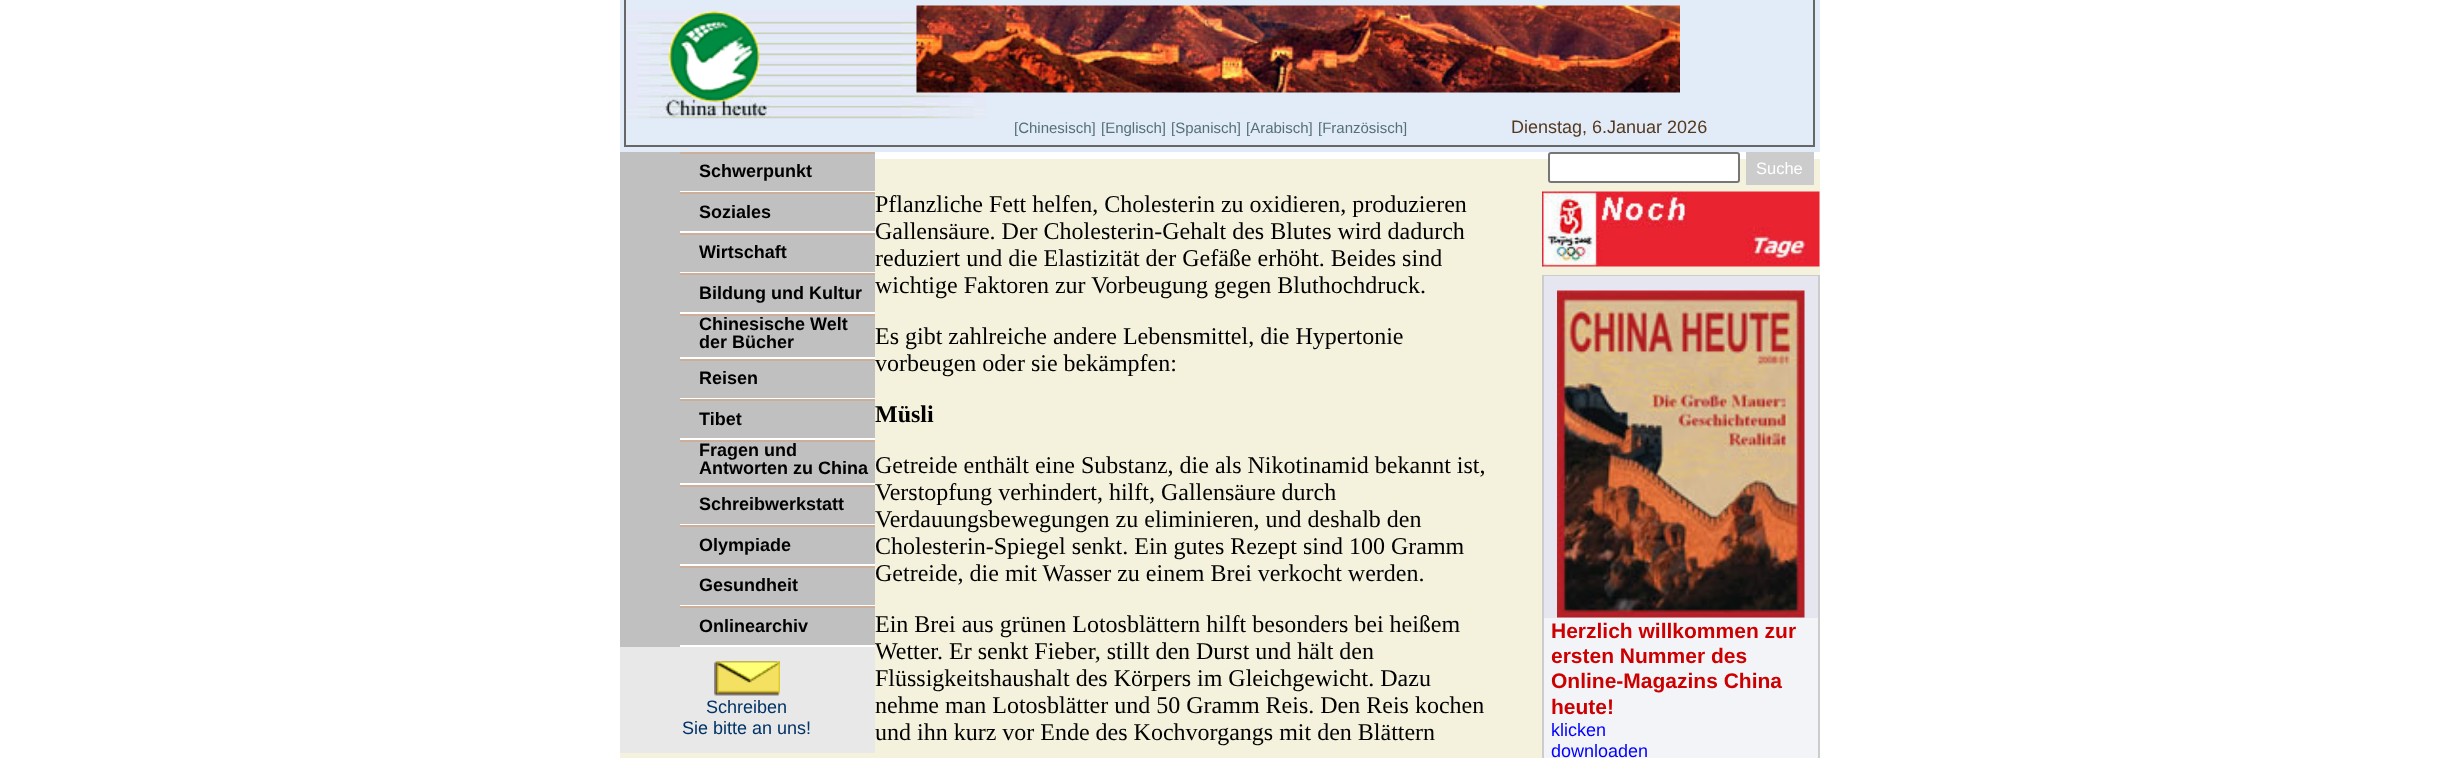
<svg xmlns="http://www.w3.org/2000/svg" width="2438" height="758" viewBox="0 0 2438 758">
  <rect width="100%" height="100%" fill="#fff"/>
  <path d="M620 0h1200v152H620z" fill="#e2ecf8"/>
  <image x="626" y="10" width="360" height="109" href="img/1.png"/>
  <path d="M625 -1h1189v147H625z" fill="none" stroke="#676767" stroke-width="2"/>
  <image x="916" y="5" width="764" height="88" href="img/2.png"/>
  <path d="M620 159h1200v599H620z" fill="#f4f2dc"/>
  <path d="M620 152h255v495H620z" fill="#c0c0c0"/>
  <path d="M680 152h195v2H680z" fill="#cdae98"/>
  <path d="M680 191h195v1H680z" fill="#fff"/>
  <path d="M680 192h195v2H680z" fill="#cdae98"/>
  <path d="M680 231h195v2H680z" fill="#fff"/>
  <path d="M680 233h195v2H680z" fill="#cdae98"/>
  <path d="M680 272h195v1H680z" fill="#fff"/>
  <path d="M680 273h195v2H680z" fill="#cdae98"/>
  <path d="M680 312h195v2H680z" fill="#fff"/>
  <path d="M680 314h195v2H680z" fill="#cdae98"/>
  <path d="M680 357h195v2H680z" fill="#fff"/>
  <path d="M680 359h195v2H680z" fill="#cdae98"/>
  <path d="M680 398h195v1H680z" fill="#fff"/>
  <path d="M680 399h195v2H680z" fill="#cdae98"/>
  <path d="M680 438h195v2H680z" fill="#fff"/>
  <path d="M680 440h195v2H680z" fill="#cdae98"/>
  <path d="M680 483h195v2H680z" fill="#fff"/>
  <path d="M680 485h195v2H680z" fill="#cdae98"/>
  <path d="M680 524h195v1H680z" fill="#fff"/>
  <path d="M680 525h195v2H680z" fill="#cdae98"/>
  <path d="M680 564h195v2H680z" fill="#fff"/>
  <path d="M680 566h195v2H680z" fill="#cdae98"/>
  <path d="M680 605h195v1H680z" fill="#fff"/>
  <path d="M680 606h195v2H680z" fill="#cdae98"/>
  <path d="M680 645h195v2H680z" fill="#fff"/>
  <path d="M620 647h255v106H620z" fill="#e8e8e8"/>
  <image x="714" y="661" width="66" height="35" href="img/3.png"/>
  <rect x="1549" y="153" width="190" height="29" rx="2" fill="#fff" stroke="#767676" stroke-width="2"/>
  <path d="M1746 152h68v33H1746z" fill="#ccc"/>
  <image x="1542" y="191" width="278" height="76" href="img/4.png"/>
  <path d="M1543 276h276v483H1543z" fill="none" stroke="#ccc" stroke-width="2"/>
  <path d="M1544 276h274v342H1544z" fill="#e5e6f0"/>
  <image x="1557" y="290" width="248" height="328" href="img/5.png"/>
  <path d="M1544 618h274v140H1544z" fill="#f3f4f8"/>
  <g font-family="Liberation Sans" font-size="15" fill="#567076">
    <text x="1014" y="133">[Chinesisch]</text>
    <text x="1101" y="133">[Englisch]</text>
    <text x="1171" y="133">[Spanisch]</text>
    <text x="1246" y="133">[Arabisch]</text>
    <text x="1318" y="133">[Französisch]</text>
  </g>
  <text x="1511" y="133" font-family="Liberation Sans" font-size="18" fill="#553820">Dienstag, 6.Januar 2026</text>
  <g font-family="Liberation Sans" font-size="18" font-weight="bold" fill="#000">
    <text x="699" y="177">Schwerpunkt</text>
    <text x="699" y="218">Soziales</text>
    <text x="699" y="258">Wirtschaft</text>
    <text x="699" y="299">Bildung und Kultur</text>
    <text x="699" y="330">Chinesische Welt</text>
    <text x="699" y="348">der Bücher</text>
    <text x="699" y="384">Reisen</text>
    <text x="699" y="425">Tibet</text>
    <text x="699" y="456">Fragen und</text>
    <text x="699" y="474">Antworten zu China</text>
    <text x="699" y="510">Schreibwerkstatt</text>
    <text x="699" y="551">Olympiade</text>
    <text x="699" y="591">Gesundheit</text>
    <text x="699" y="632">Onlinearchiv</text>
  </g>
  <g font-family="Liberation Sans" font-size="18" fill="#036">
    <text x="706" y="713">Schreiben</text>
    <text x="682" y="734">Sie bitte an uns!</text>
  </g>
  <g font-family="Liberation Serif" font-size="24" fill="#000">
    <text x="875" y="212">Pflanzliche Fett helfen, Cholesterin zu oxidieren, produzieren</text>
    <text x="875" y="239">Gallensäure. Der Cholesterin-Gehalt des Blutes wird dadurch</text>
    <text x="875" y="266">reduziert und die Elastizität der Gefäße erhöht. Beides sind</text>
    <text x="875" y="293">wichtige Faktoren zur Vorbeugung gegen Bluthochdruck.</text>
    <text x="875" y="344">Es gibt zahlreiche andere Lebensmittel, die Hypertonie</text>
    <text x="875" y="371">vorbeugen oder sie bekämpfen:</text>
  </g>
  <text x="875" y="422" font-family="Liberation Serif" font-size="24" font-weight="bold" fill="#000">Müsli</text>
  <g font-family="Liberation Serif" font-size="24" fill="#000">
    <text x="875" y="473">Getreide enthält eine Substanz, die als Nikotinamid bekannt ist,</text>
    <text x="875" y="500">Verstopfung verhindert, hilft, Gallensäure durch</text>
    <text x="875" y="527">Verdauungsbewegungen zu eliminieren, und deshalb den</text>
    <text x="875" y="554">Cholesterin-Spiegel senkt. Ein gutes Rezept sind 100 Gramm</text>
    <text x="875" y="581">Getreide, die mit Wasser zu einem Brei verkocht werden.</text>
    <text x="875" y="632">Ein Brei aus grünen Lotosblättern hilft besonders bei heißem</text>
    <text x="875" y="659">Wetter. Er senkt Fieber, stillt den Durst und hält den</text>
    <text x="875" y="686">Flüssigkeitshaushalt des Körpers im Gleichgewicht. Dazu</text>
    <text x="875" y="713">nehme man Lotosblätter und 50 Gramm Reis. Den Reis kochen</text>
    <text x="875" y="740">und ihn kurz vor Ende des Kochvorgangs mit den Blättern</text>
  </g>
  <text x="1756" y="174" font-family="Liberation Sans" font-size="16.5" fill="#fff">Suche</text>
  <g font-family="Liberation Sans" font-size="21" font-weight="bold" fill="#c00">
    <text x="1551" y="638">Herzlich willkommen zur</text>
    <text x="1551" y="663">ersten Nummer des</text>
    <text x="1551" y="688">Online-Magazins China</text>
    <text x="1551" y="714">heute!</text>
  </g>
  <g font-family="Liberation Sans" font-size="18" fill="#00f">
    <text x="1551" y="736">klicken</text>
    <text x="1551" y="757">downloaden</text>
  </g>
</svg>
